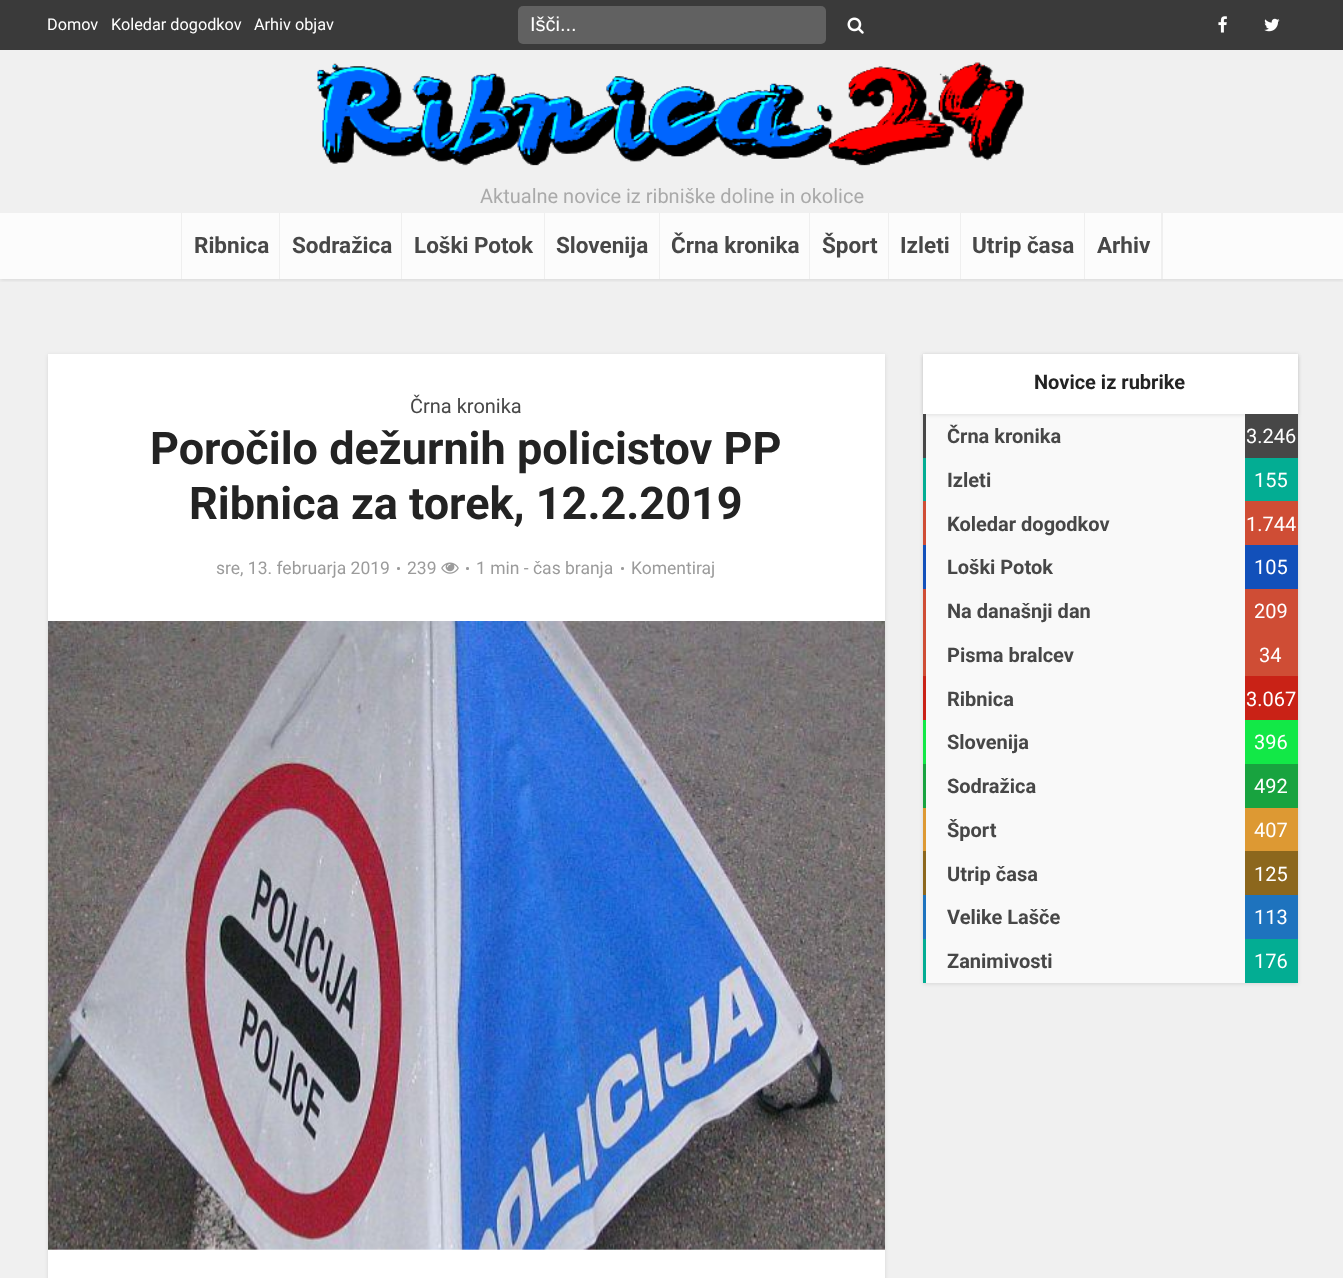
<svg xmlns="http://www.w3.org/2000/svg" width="1343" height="1278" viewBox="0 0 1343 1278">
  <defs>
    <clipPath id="clip1"><path d="M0 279h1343v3H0z"/></clipPath>
  </defs>
  <rect width="100%" height="100%" fill="#f0f0f0"/>
  <g clip-path="url(#clip1)">
    <path d="M0 1h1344v279H0z" fill="#0000001a" filter="blur(2px)"/>
  </g>
  <path d="M0 0h1343v50H0z" fill="#3a3a3a"/>
  <rect x="518" y="6" width="308" height="38" rx="5" fill="#616161"/>
  <image x="847" y="17" width="17" height="17" href="img/1.png"/>
  <image x="1218" y="16" width="9" height="17" href="img/2.png"/>
  <image x="1264" y="18" width="16" height="14" href="img/3.png"/>
  <image x="317" y="62" width="707" height="104" href="img/4.png"/>
  <path d="M0 213h1343v66H0z" fill="#fcfcfc"/>
  <path d="M181 213V279H279H182V213Z" fill="#efefef"/>
  <path d="M279 213V279H401H280V213Z" fill="#efefef"/>
  <path d="M401 213V279H544H402V213Z" fill="#efefef"/>
  <path d="M544 213V279H659H545V213Z" fill="#efefef"/>
  <path d="M659 213V279H809H660V213Z" fill="#efefef"/>
  <path d="M809 213V279H888H810V213Z" fill="#efefef"/>
  <path d="M888 213V279H960H889V213Z" fill="#efefef"/>
  <path d="M960 213V279H1084H961V213Z" fill="#efefef"/>
  <path d="M1086 279H1163V213H1161V279Z" fill="#efefef"/>
  <path d="M1084 213V279H1160H1085V213Z" fill="#efefef"/>
  <path d="M48 355h837v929H48z" fill="#0000001a" filter="blur(2px)"/>
  <path d="M48 354h837v924H48z" fill="#fff"/>
  <image x="441" y="562" width="18" height="12" href="img/5.png"/>
  <image x="48" y="621" width="837" height="629" href="img/6.png"/>
  <path d="M923 355h375v629H923z" fill="#0000001a" filter="blur(2px)"/>
  <path d="M926 414h319v569H926z" fill="#f9f9f9"/>
  <path d="M923 355h375v60H923z" fill="#0000001a" filter="blur(2px)"/>
  <path d="M923 354h375v60H923z" fill="#fff"/>
  <path d="M923 414h3v44H923z" fill="#474747"/>
  <path d="M1245 414h53v44H1245z" fill="#474747"/>
  <path d="M923 458h3v43H923z" fill="#03ad93"/>
  <path d="M1245 458h53v43H1245z" fill="#03ad93"/>
  <path d="M923 501h3v44H923z" fill="#cf4d35"/>
  <path d="M1245 501h53v44H1245z" fill="#cf4d35"/>
  <path d="M923 545h3v44H923z" fill="#1250ba"/>
  <path d="M1245 545h53v44H1245z" fill="#1250ba"/>
  <path d="M923 589h3v87H923z" fill="#cf4d35"/>
  <path d="M1245 589h53v87H1245z" fill="#cf4d35"/>
  <path d="M923 676h3v44H923z" fill="#c92216"/>
  <path d="M1245 676h53v44H1245z" fill="#c92216"/>
  <path d="M923 720h3v44H923z" fill="#12e847"/>
  <path d="M1245 720h53v44H1245z" fill="#12e847"/>
  <path d="M923 764h3v44H923z" fill="#18a33f"/>
  <path d="M1245 764h53v44H1245z" fill="#18a33f"/>
  <path d="M923 808h3v43H923z" fill="#d93"/>
  <path d="M1245 808h53v43H1245z" fill="#d93"/>
  <path d="M923 851h3v44H923z" fill="#8c671d"/>
  <path d="M1245 851h53v44H1245z" fill="#8c671d"/>
  <path d="M923 895h3v44H923z" fill="#1e73be"/>
  <path d="M1245 895h53v44H1245z" fill="#1e73be"/>
  <path d="M923 939h3v44H923z" fill="#03ad93"/>
  <path d="M1245 939h53v44H1245z" fill="#03ad93"/>
  <g font-family="Roboto" font-size="16.25" fill="#fff">
    <text x="47" y="30">Domov</text>
    <text x="111" y="30">Koledar dogodkov</text>
    <text x="254" y="30">Arhiv objav</text>
  </g>
  <text x="530" y="31" font-family="Liberation Sans" font-size="20" fill="#fff">Išči...</text>
  <text x="480" y="203" font-family="Roboto" font-size="20" fill="#aaa">Aktualne novice iz ribniške doline in okolice</text>
  <g font-family="Roboto" font-size="22.5" font-weight="bold" fill="#474747">
    <text x="194" y="253">Ribnica</text>
    <text x="292" y="253">Sodražica</text>
    <text x="414" y="253">Loški Potok</text>
    <text x="556" y="253">Slovenija</text>
    <text x="671" y="253">Črna kronika</text>
    <text x="822" y="253">Šport</text>
    <text x="900" y="253">Izleti</text>
    <text x="972" y="253">Utrip časa</text>
    <text x="1097" y="253">Arhiv</text>
  </g>
  <text x="410" y="413" font-family="Roboto" font-size="20" fill="#474747">Črna kronika</text>
  <g font-family="Roboto" font-size="45" font-weight="bold" fill="#232323">
    <text x="150" y="464">Poročilo dežurnih policistov PP</text>
    <text x="189" y="519">Ribnica za torek, 12.2.2019</text>
  </g>
  <text x="216" y="574" font-family="Roboto" font-size="17.5" fill="#9b9b9b">sre, 13. februarja 2019</text>
  <text x="396" y="574" font-family="Roboto" font-size="15" fill="#9b9b9b">•</text>
  <text x="407" y="574" font-family="Roboto" font-size="17.5" fill="#9b9b9b">239</text>
  <text x="465" y="574" font-family="Roboto" font-size="15" fill="#9b9b9b">•</text>
  <text x="476" y="574" font-family="Roboto" font-size="17.5" fill="#9b9b9b">1 min - čas branja</text>
  <text x="620" y="574" font-family="Roboto" font-size="15" fill="#9b9b9b">•</text>
  <text x="631" y="574" font-family="Roboto" font-size="17.5" fill="#9b9b9b">Komentiraj</text>
  <text x="1034" y="389" font-family="Roboto" font-size="20" font-weight="bold" fill="#232323">Novice iz rubrike</text>
  <text x="947" y="443" font-family="Roboto" font-size="20" font-weight="bold" fill="#474747">Črna kronika</text>
  <text x="1246" y="443" font-family="Roboto" font-size="20" fill="#fff">3.246</text>
  <text x="947" y="487" font-family="Roboto" font-size="20" font-weight="bold" fill="#474747">Izleti</text>
  <text x="1254" y="487" font-family="Roboto" font-size="20" fill="#fff">155</text>
  <text x="947" y="531" font-family="Roboto" font-size="20" font-weight="bold" fill="#474747">Koledar dogodkov</text>
  <text x="1246" y="531" font-family="Roboto" font-size="20" fill="#fff">1.744</text>
  <text x="947" y="574" font-family="Roboto" font-size="20" font-weight="bold" fill="#474747">Loški Potok</text>
  <text x="1254" y="574" font-family="Roboto" font-size="20" fill="#fff">105</text>
  <text x="947" y="618" font-family="Roboto" font-size="20" font-weight="bold" fill="#474747">Na današnji dan</text>
  <text x="1254" y="618" font-family="Roboto" font-size="20" fill="#fff">209</text>
  <text x="947" y="662" font-family="Roboto" font-size="20" font-weight="bold" fill="#474747">Pisma bralcev</text>
  <text x="1259" y="662" font-family="Roboto" font-size="20" fill="#fff">34</text>
  <text x="947" y="706" font-family="Roboto" font-size="20" font-weight="bold" fill="#474747">Ribnica</text>
  <text x="1246" y="706" font-family="Roboto" font-size="20" fill="#fff">3.067</text>
  <text x="947" y="749" font-family="Roboto" font-size="20" font-weight="bold" fill="#474747">Slovenija</text>
  <text x="1254" y="749" font-family="Roboto" font-size="20" fill="#fff">396</text>
  <text x="947" y="793" font-family="Roboto" font-size="20" font-weight="bold" fill="#474747">Sodražica</text>
  <text x="1254" y="793" font-family="Roboto" font-size="20" fill="#fff">492</text>
  <text x="947" y="837" font-family="Roboto" font-size="20" font-weight="bold" fill="#474747">Šport</text>
  <text x="1254" y="837" font-family="Roboto" font-size="20" fill="#fff">407</text>
  <text x="947" y="881" font-family="Roboto" font-size="20" font-weight="bold" fill="#474747">Utrip časa</text>
  <text x="1254" y="881" font-family="Roboto" font-size="20" fill="#fff">125</text>
  <text x="947" y="924" font-family="Roboto" font-size="20" font-weight="bold" fill="#474747">Velike Lašče</text>
  <text x="1254" y="924" font-family="Roboto" font-size="20" fill="#fff">113</text>
  <text x="947" y="968" font-family="Roboto" font-size="20" font-weight="bold" fill="#474747">Zanimivosti</text>
  <text x="1254" y="968" font-family="Roboto" font-size="20" fill="#fff">176</text>
</svg>
